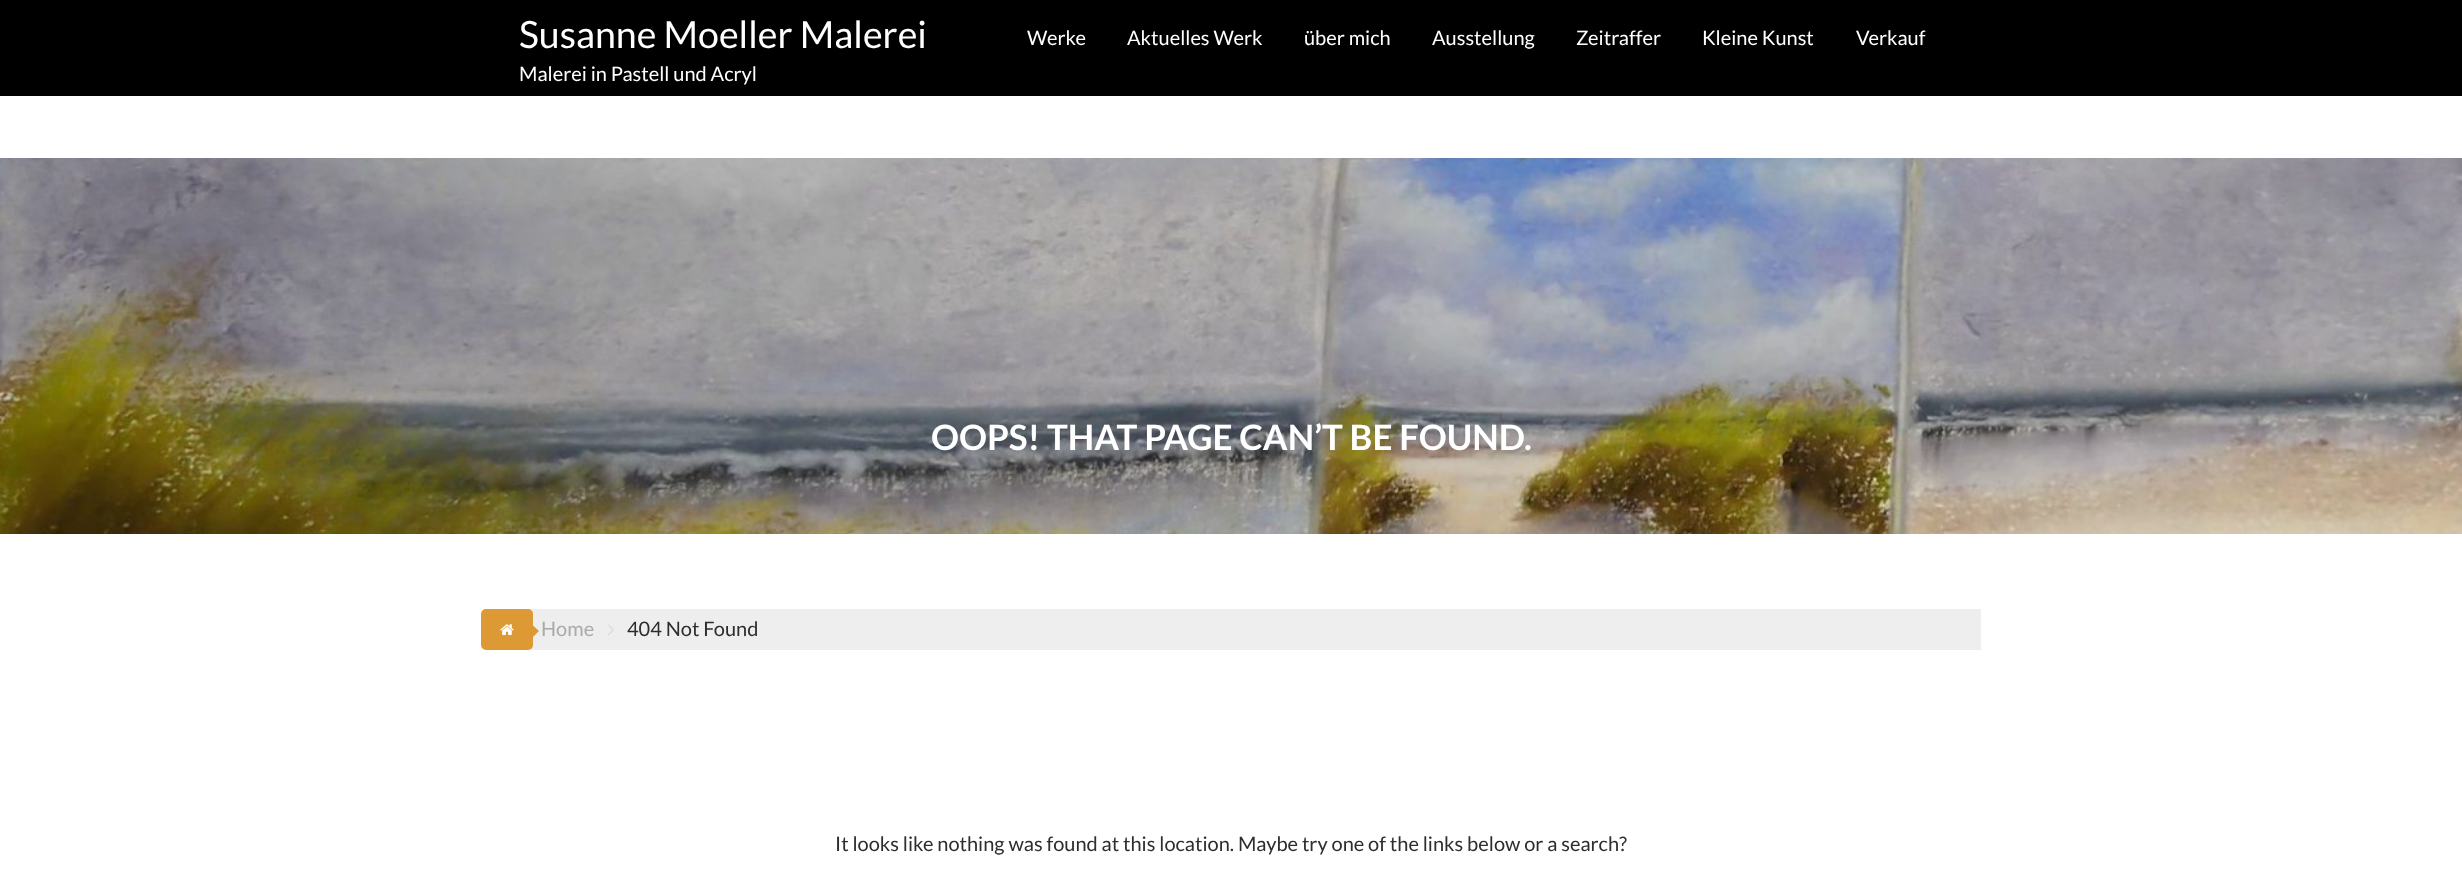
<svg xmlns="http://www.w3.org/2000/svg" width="2462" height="869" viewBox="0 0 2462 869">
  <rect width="100%" height="100%" fill="#fff"/>
  <path d="M0 0h2462v96H0z" fill="#000"/>
  <image x="0" y="158" width="2462" height="376" href="img/1.png"/>
  <path d="M529 609h1452v41H529z" fill="#eeeeef"/>
  <rect x="481" y="609" width="52" height="41" rx="5" fill="#d93"/>
  <image x="500" y="624" width="14" height="11" href="img/2.png"/>
  <path d="M532.5 637.5V625L539 631Z" fill="#d93"/>
  <image x="608" y="624" width="6" height="12" href="img/3.png"/>
  <text x="519" y="48" font-family="Lato" font-size="37.5" fill="#fff">Susanne Moeller Malerei</text>
  <g font-family="Lato" font-size="20" fill="#fff">
    <text x="519" y="81">Malerei in Pastell und Acryl</text>
    <text x="1027" y="45">Werke</text>
    <text x="1127" y="45">Aktuelles Werk</text>
    <text x="1304" y="45">über mich</text>
    <text x="1432" y="45">Ausstellung</text>
    <text x="1576" y="45">Zeitraffer</text>
    <text x="1702" y="45">Kleine Kunst</text>
    <text x="1856" y="45">Verkauf</text>
  </g>
  <text x="931" y="450" font-family="Lato" font-size="35" font-weight="bold" fill="#fff">OOPS! THAT PAGE CAN’T BE FOUND.</text>
  <text x="541" y="636" font-family="Lato" font-size="20" fill="#aaa">Home</text>
  <g font-family="Lato" font-size="20" fill="#2d2d2d">
    <text x="627" y="636">404 Not Found</text>
    <text x="835" y="851">It looks like nothing was found at this location. Maybe try one of the links below or a search?</text>
  </g>
</svg>
